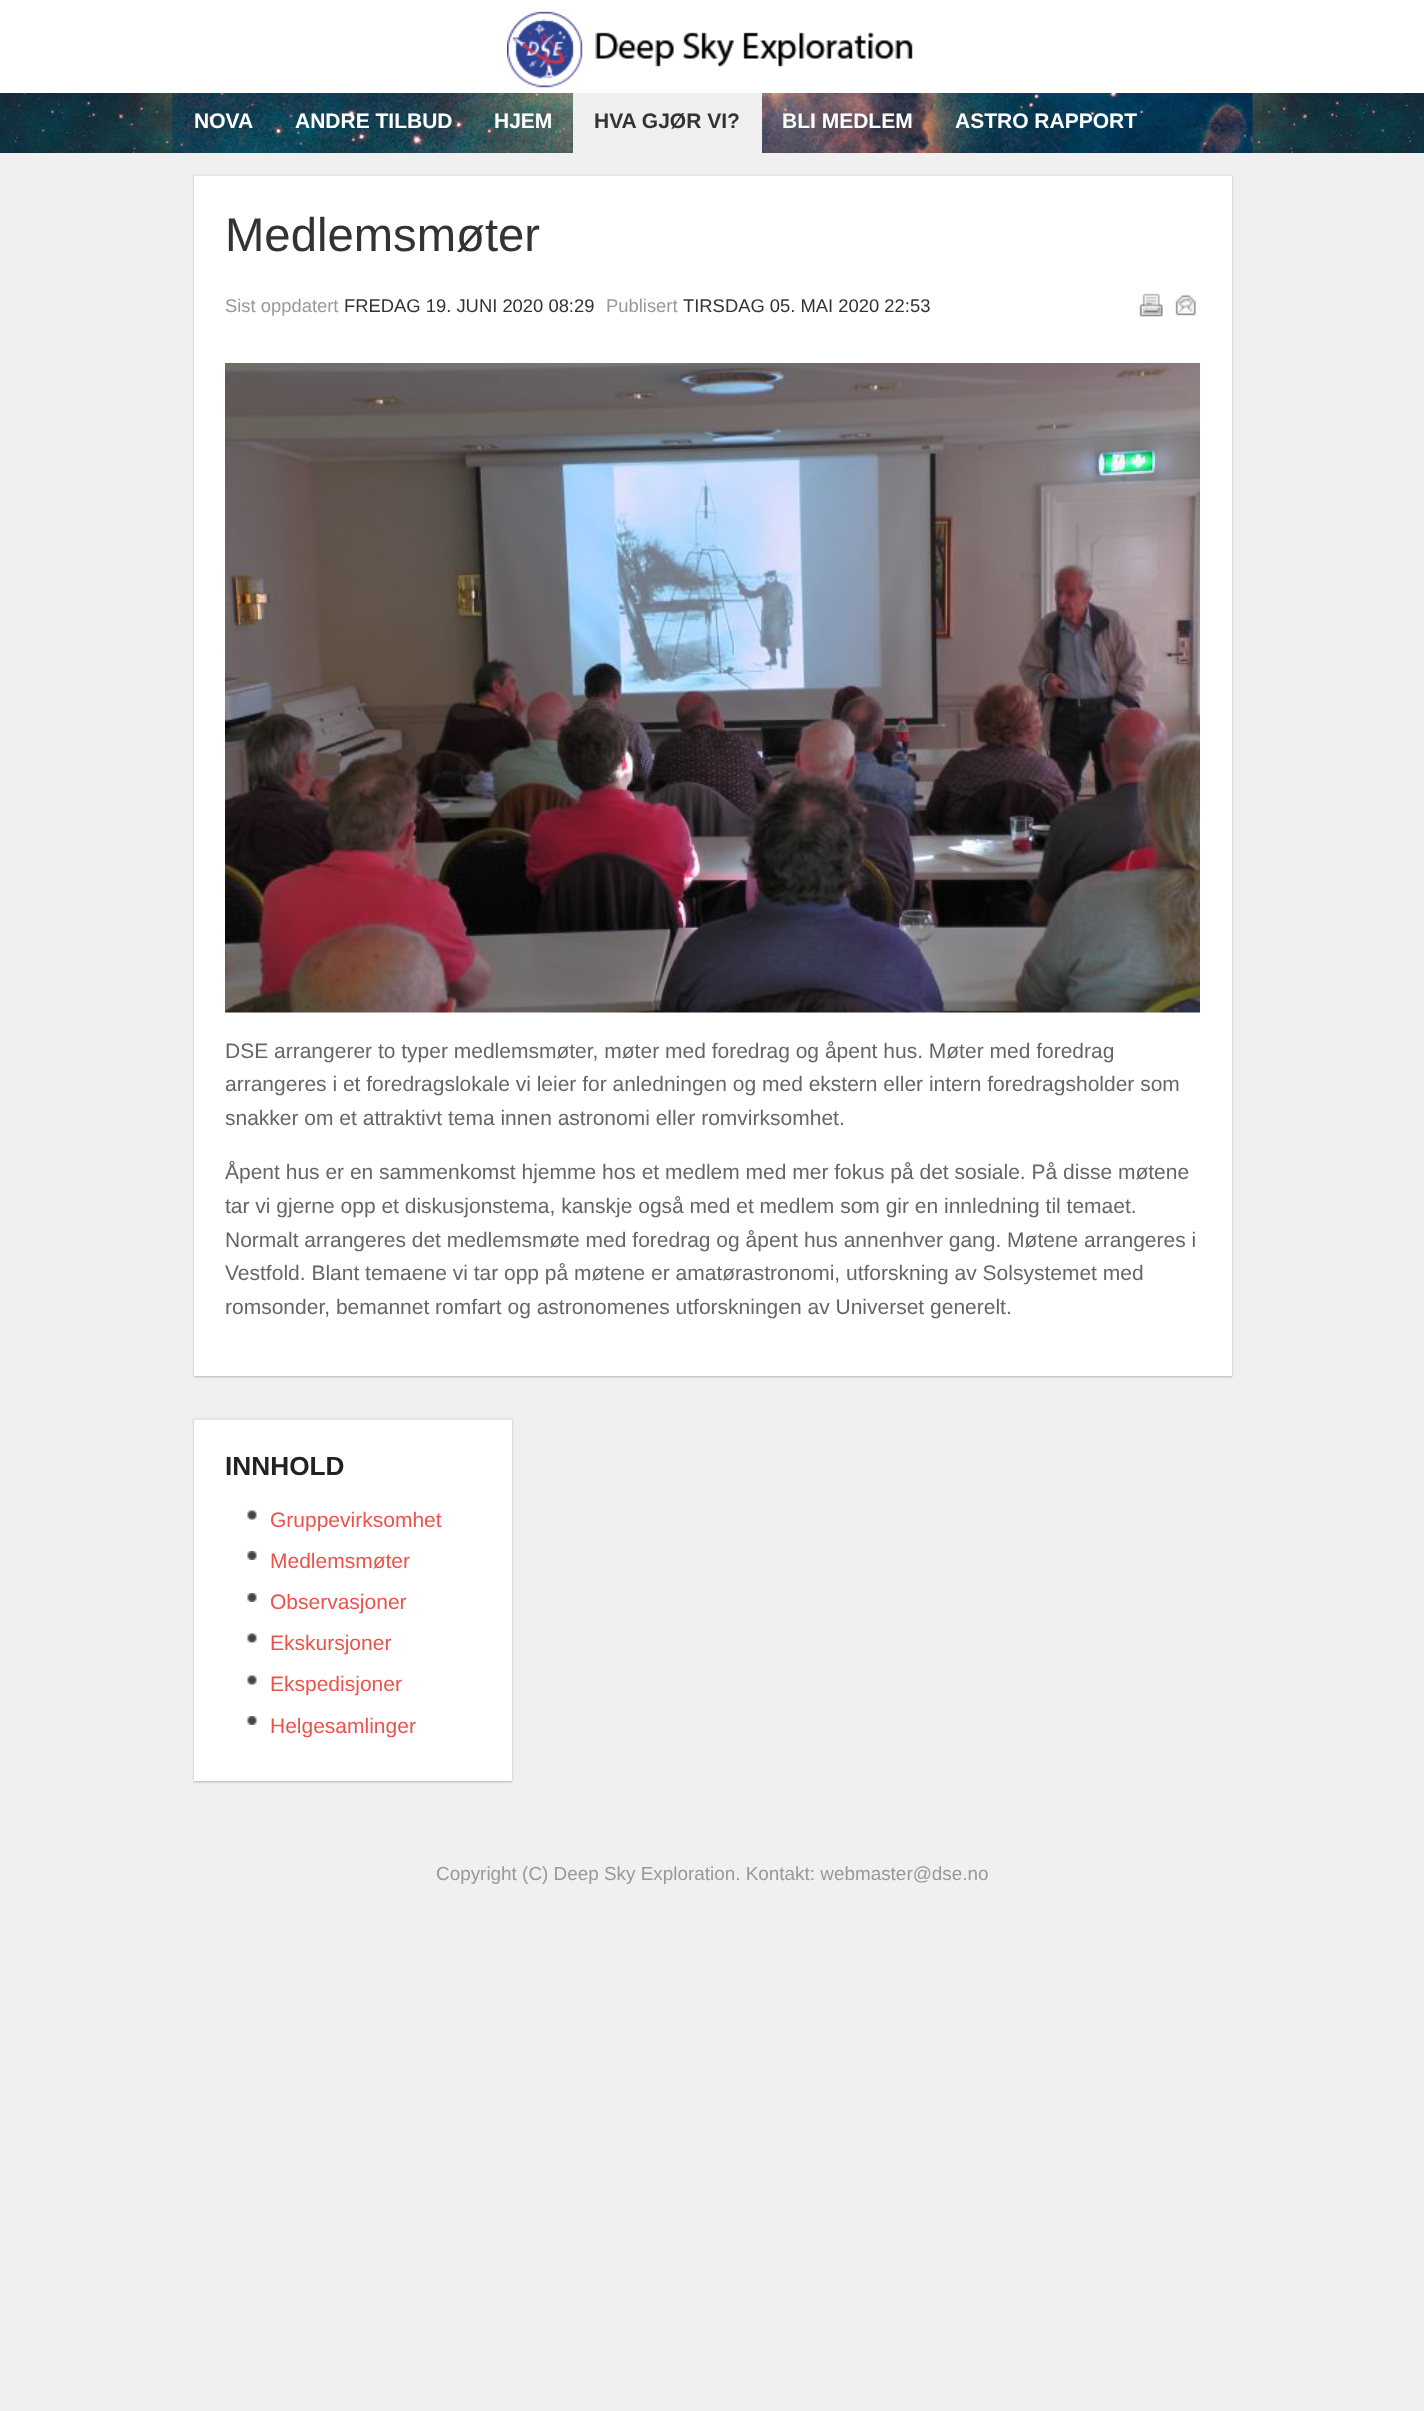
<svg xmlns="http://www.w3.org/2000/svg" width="1424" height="2411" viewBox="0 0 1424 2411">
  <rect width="100%" height="100%" fill="#f0f0f0"/>
  <image x="0" y="93" width="1424" height="60" href="img/1.png"/>
  <path d="M0 0h1424v93H0z" fill="#fff"/>
  <image x="507" y="11" width="406" height="77" href="img/2.png"/>
  <image x="172" y="93" width="1081" height="60" href="img/3.png"/>
  <path d="M573 93h189v60H573z" fill="#f0f0f0"/>
  <path d="M194 176h1038v1201H194z" fill="#00000040" filter="blur(1px)"/>
  <path d="M194 176h1038v1200H194z" fill="#fff"/>
  <path d="M194 174h1038v2H194z" fill="#e6e6e6"/>
  <image x="1139" y="293" width="24" height="24" href="img/4.png"/>
  <image x="1175" y="295" width="21" height="21" href="img/5.png"/>
  <image x="225" y="363" width="975" height="650" href="img/6.png"/>
  <path d="M194 1419h318v363H194z" fill="#00000040" filter="blur(1px)"/>
  <path d="M194 1420h318v361H194z" fill="#fff"/>
  <path d="M194 1418h318v2H194z" fill="#e6e6e6"/>
  <image x="247" y="1510" width="10" height="10" href="img/7.png"/>
  <image x="247" y="1551" width="10" height="9" href="img/8.png"/>
  <image x="247" y="1593" width="10" height="9" href="img/8.png"/>
  <image x="247" y="1633" width="10" height="10" href="img/7.png"/>
  <image x="247" y="1675" width="10" height="10" href="img/7.png"/>
  <image x="247" y="1716" width="10" height="9" href="img/8.png"/>
  <g font-family="Liberation Sans" font-size="21" font-weight="bold" fill="#fff">
    <text x="194" y="128">NOVA</text>
    <text x="295" y="128">ANDRE TILBUD</text>
    <text x="494" y="128">HJEM</text>
  </g>
  <text x="594" y="128" font-family="Liberation Sans" font-size="21" font-weight="bold" fill="#333">HVA GJØR VI?</text>
  <g font-family="Liberation Sans" font-size="21" font-weight="bold" fill="#fff">
    <text x="782" y="128">BLI MEDLEM</text>
    <text x="955" y="128">ASTRO RAPPORT</text>
  </g>
  <text x="225" y="251" font-family="Liberation Sans" font-size="47.25" fill="#333">Medlemsmøter</text>
  <text x="225" y="312" font-family="Liberation Sans" font-size="18.4" fill="#999">Sist oppdatert</text>
  <text x="344" y="312" font-family="Liberation Sans" font-size="18.4" fill="#333">FREDAG 19. JUNI 2020 08:29</text>
  <text x="606" y="312" font-family="Liberation Sans" font-size="18.4" fill="#999">Publisert</text>
  <text x="683" y="312" font-family="Liberation Sans" font-size="18.4" fill="#333">TIRSDAG 05. MAI 2020 22:53</text>
  <g font-family="Liberation Sans" font-size="21" fill="#666">
    <text x="225" y="1058">DSE arrangerer to typer medlemsmøter, møter med foredrag og åpent hus. Møter med foredrag</text>
    <text x="225" y="1091">arrangeres i et foredragslokale vi leier for anledningen og med ekstern eller intern foredragsholder som</text>
    <text x="225" y="1125">snakker om et attraktivt tema innen astronomi eller romvirksomhet.</text>
    <text x="225" y="1179">Åpent hus er en sammenkomst hjemme hos et medlem med mer fokus på det sosiale. På disse møtene</text>
    <text x="225" y="1213">tar vi gjerne opp et diskusjonstema, kanskje også med et medlem som gir en innledning til temaet.</text>
    <text x="225" y="1247">Normalt arrangeres det medlemsmøte med foredrag og åpent hus annenhver gang. Møtene arrangeres i</text>
    <text x="225" y="1280">Vestfold. Blant temaene vi tar opp på møtene er amatørastronomi, utforskning av Solsystemet med</text>
    <text x="225" y="1314">romsonder, bemannet romfart og astronomenes utforskningen av Universet generelt.</text>
  </g>
  <text x="225" y="1475" font-family="Liberation Sans" font-size="26.25" font-weight="bold" fill="#222">INNHOLD</text>
  <g font-family="Liberation Sans" font-size="21" fill="#ec534d">
    <text x="270" y="1527">Gruppevirksomhet</text>
    <text x="270" y="1568">Medlemsmøter</text>
    <text x="270" y="1609">Observasjoner</text>
    <text x="270" y="1650">Ekskursjoner</text>
    <text x="270" y="1691">Ekspedisjoner</text>
    <text x="270" y="1733">Helgesamlinger</text>
  </g>
  <text x="436" y="1880" font-family="Liberation Sans" font-size="18.9" fill="#999">Copyright (C) Deep Sky Exploration. Kontakt: webmaster@dse.no</text>
</svg>
